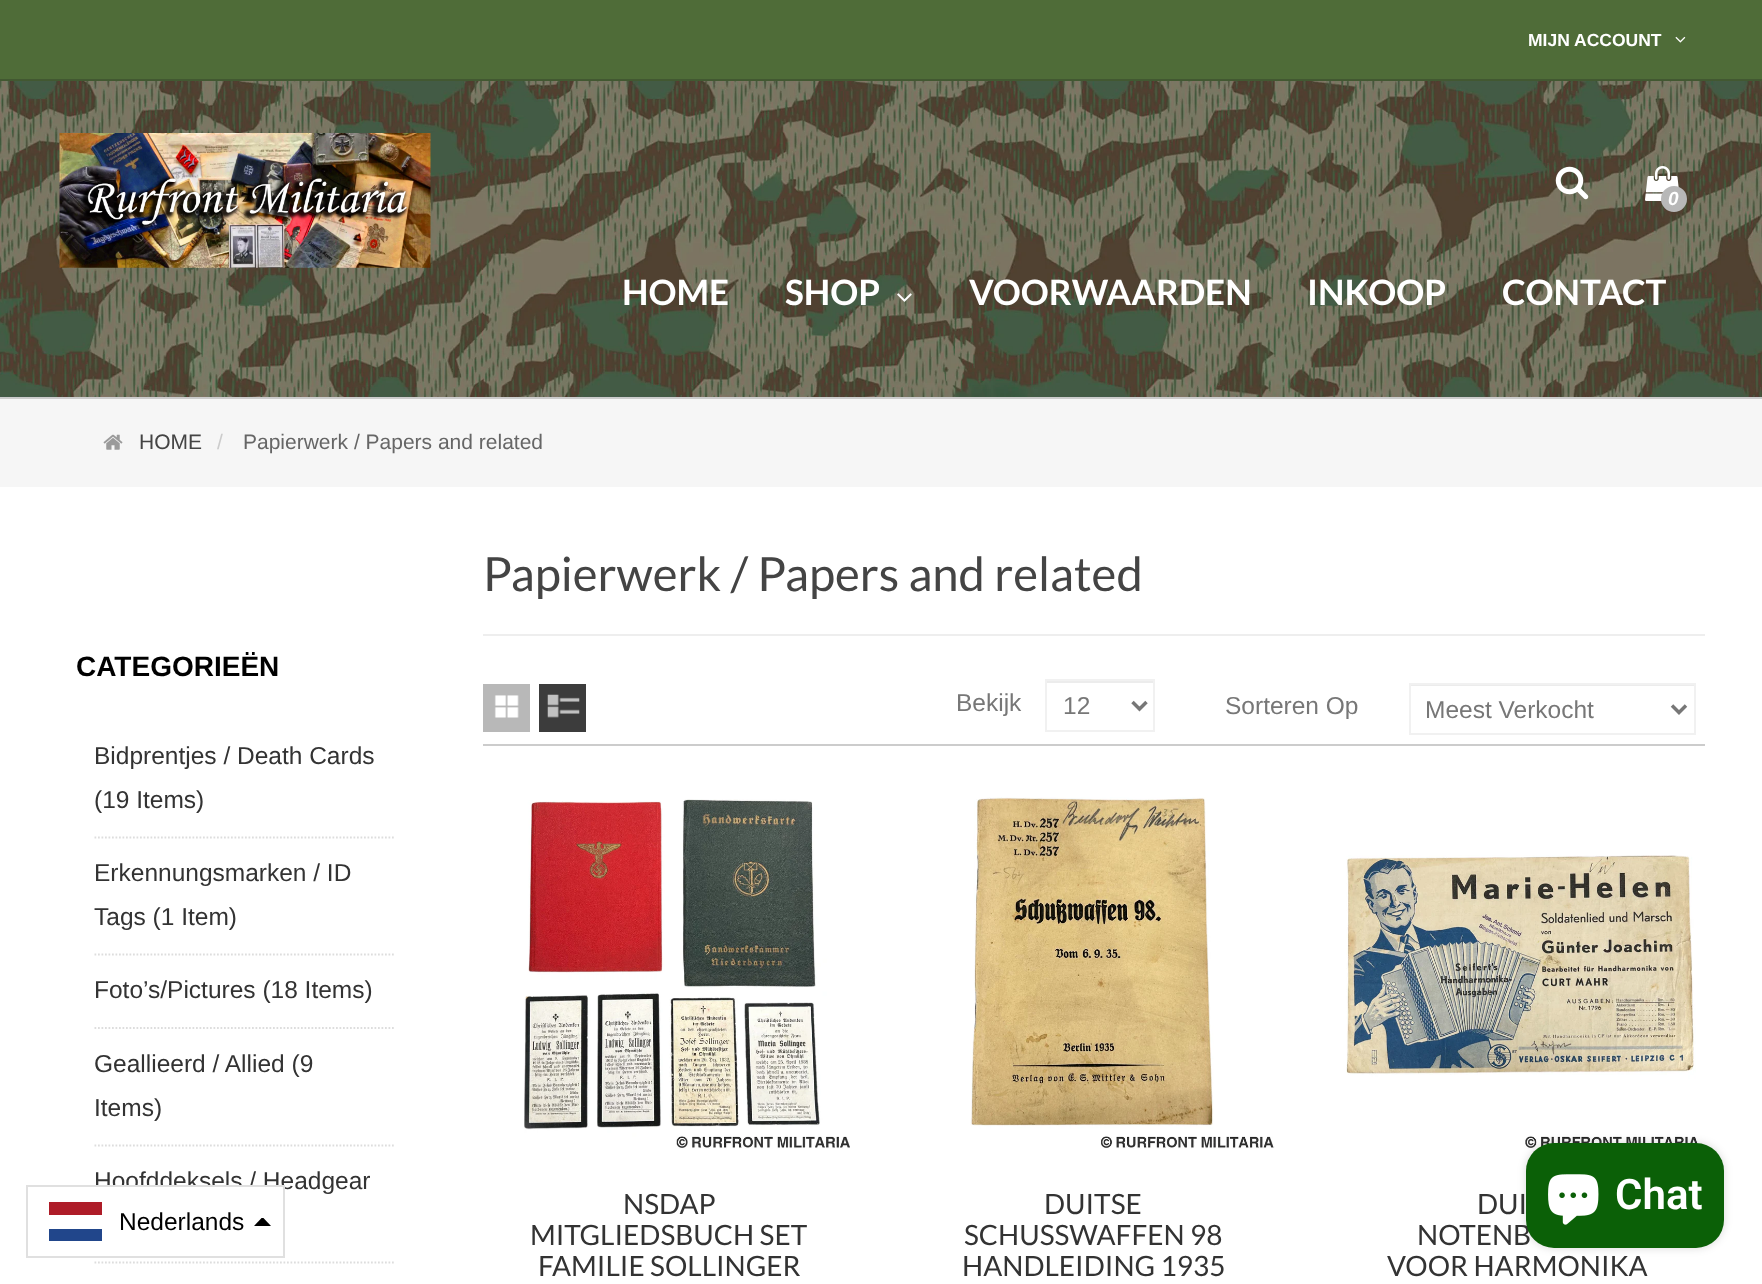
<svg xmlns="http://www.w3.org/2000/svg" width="1762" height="1284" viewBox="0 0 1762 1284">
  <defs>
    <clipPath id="clip1"><path d="M254 1218h17v9H254z"/></clipPath>
  </defs>
  <rect width="100%" height="100%" fill="#fff"/>
  <path d="M0 0h1762v79H0z" fill="#4f6c38"/>
  <image x="1675" y="36" width="11" height="7" href="img/1.png"/>
  <image x="0" y="81" width="1762" height="316" href="img/2.png"/>
  <path d="M0 79h1762v2H0z" fill="#425831"/>
  <path d="M0 397h1762v2H0z" fill="#ccc"/>
  <image x="59" y="133" width="372" height="135" href="img/3.png"/>
  <image x="1555" y="166" width="34" height="34" href="img/4.png"/>
  <image x="1645" y="166" width="34" height="35" href="img/5.png"/>
  <circle cx="1674" cy="199" r="12" fill="#b8b8b8" stroke="#b8b8b8" stroke-width="2"/>
  <image x="897" y="293" width="15" height="9" href="img/6.png"/>
  <path d="M0 399h1762v88H0z" fill="#f6f6f6"/>
  <image x="103" y="434" width="20" height="16" href="img/7.png"/>
  <path d="M94.5 837.5H395.5" fill="none" stroke="#ddd" stroke-width="1.8" stroke-dasharray="1.75 1.75"/>
  <path d="M94.5 954.5H395.5" fill="none" stroke="#ddd" stroke-width="1.8" stroke-dasharray="1.75 1.75"/>
  <path d="M94.5 1028H395.5" fill="none" stroke="#ddd" stroke-width="1.8" stroke-dasharray="1.75 1.75"/>
  <path d="M94.5 1145.5H395.5" fill="none" stroke="#ddd" stroke-width="1.8" stroke-dasharray="1.75 1.75"/>
  <path d="M94.5 1262.5H395.5" fill="none" stroke="#ddd" stroke-width="1.8" stroke-dasharray="1.75 1.75"/>
  <path d="M483 634h1222v2H483z" fill="#eee"/>
  <path d="M483 744h1222v2H483z" fill="#ccc"/>
  <path d="M483 684h47v48H483z" fill="#b8b8b8"/>
  <image x="494" y="695" width="25" height="23" href="img/8.png"/>
  <path d="M539 684h47v48H539z" fill="#3c3c3c"/>
  <image x="547" y="694" width="33" height="24" href="img/9.png"/>
  <path d="M1047 681h106v2H1047z" fill="#ececec"/>
  <path d="M1046 680h108v51H1046z" fill="none" stroke="#f1f1f1" stroke-width="2"/>
  <path d="M1132.5 702L1139.5 709L1146.5 702" fill="none" stroke="#777" stroke-width="3.5"/>
  <path d="M1411 685h283v1H1411z" fill="#ececec"/>
  <path d="M1410 684h285v50H1410z" fill="none" stroke="#f1f1f1" stroke-width="2"/>
  <path d="M1672 705.5L1679 712.5L1686 705.5" fill="none" stroke="#777" stroke-width="3.5"/>
  <image x="524" y="799" width="326" height="350" href="img/10.png"/>
  <image x="970" y="797" width="305" height="352" href="img/11.png"/>
  <image x="1346" y="855" width="353" height="294" href="img/12.png"/>
  <rect x="1526" y="1143" width="198" height="105" rx="28" fill="#00000026" filter="blur(4.5px)"/>
  <text x="1528" y="46" font-family="Liberation Sans" font-size="17.5" font-weight="bold" fill="#fff">MIJN ACCOUNT</text>
  <text x="1668" y="205" font-family="Liberation Sans" font-size="19" font-weight="bold" font-style="italic" fill="#fff">0</text>
  <g font-family="Lato" font-size="35" font-weight="bold" fill="#fff">
    <text x="622" y="305">HOME</text>
    <text x="785" y="305">SHOP</text>
    <text x="969" y="305">VOORWAARDEN</text>
    <text x="1307" y="305">INKOOP</text>
    <text x="1502" y="305">CONTACT</text>
  </g>
  <text x="139" y="449" font-family="Liberation Sans" font-size="21" fill="#444">HOME</text>
  <text x="217" y="449" font-family="Liberation Sans" font-size="21" fill="#ccc">/</text>
  <text x="243" y="449" font-family="Liberation Sans" font-size="21" fill="#666">Papierwerk / Papers and related</text>
  <text x="76" y="676" font-family="Liberation Sans" font-size="28" font-weight="bold" fill="#000">CATEGORIEËN</text>
  <g font-family="Liberation Sans" font-size="24.5" fill="#333">
    <text x="94" y="764">Bidprentjes / Death Cards</text>
    <text x="94" y="808">(19 Items)</text>
    <text x="94" y="881">Erkennungsmarken / ID</text>
    <text x="94" y="925">Tags (1 Item)</text>
    <text x="94" y="998">Foto’s/Pictures (18 Items)</text>
    <text x="94" y="1072">Geallieerd / Allied (9</text>
    <text x="94" y="1116">Items)</text>
    <text x="94" y="1189">Hoofddeksels / Headgear</text>
  </g>
  <text x="483" y="591" font-family="Lato" font-size="47.25" fill="#444">Papierwerk / Papers and related</text>
  <g font-family="Liberation Sans" font-size="24.5" fill="#777">
    <text x="956" y="711">Bekijk</text>
    <text x="1063" y="714">12</text>
    <text x="1225" y="714">Sorteren Op</text>
    <text x="1425" y="718">Meest Verkocht</text>
  </g>
  <g font-family="Lato" font-size="28" fill="#333">
    <text x="623" y="1214">NSDAP</text>
    <text x="530" y="1245">MITGLIEDSBUCH SET</text>
    <text x="538" y="1276">FAMILIE SOLLINGER</text>
    <text x="1044" y="1214">DUITSE</text>
    <text x="964" y="1245">SCHUSSWAFFEN 98</text>
    <text x="962" y="1276">HANDLEIDING 1935</text>
    <text x="1477" y="1214">DUI</text>
    <text x="1417" y="1245">NOTENB</text>
    <text x="1387" y="1276">VOOR HARMONIKA</text>
  </g>
  <rect x="1526" y="1143" width="198" height="105" rx="28" fill="#0b6007"/>
  <image x="1548" y="1174" width="51" height="51" href="img/13.png"/>
  <text x="1615" y="1209" font-family="Roboto" font-size="42" font-weight="600" fill="#fff">Chat</text>
  <path d="M95 1187h188v3H95z" fill="#fff"/>
  <path d="M27 1186h257v71H27z" fill="none" stroke="#e0e0e0" stroke-width="2"/>
  <path d="M49 1229h53v12H49z" fill="#21468b"/>
  <path d="M49 1202h53v13H49z" fill="#ae1c28"/>
  <text x="119" y="1230" font-family="Liberation Sans" font-size="24.5" fill="#000">Nederlands</text>
  <g clip-path="url(#clip1)">
    <path d="M254 1226L262.5 1217L271 1226Z" fill="#000" fill-rule="evenodd"/>
  </g>
</svg>
